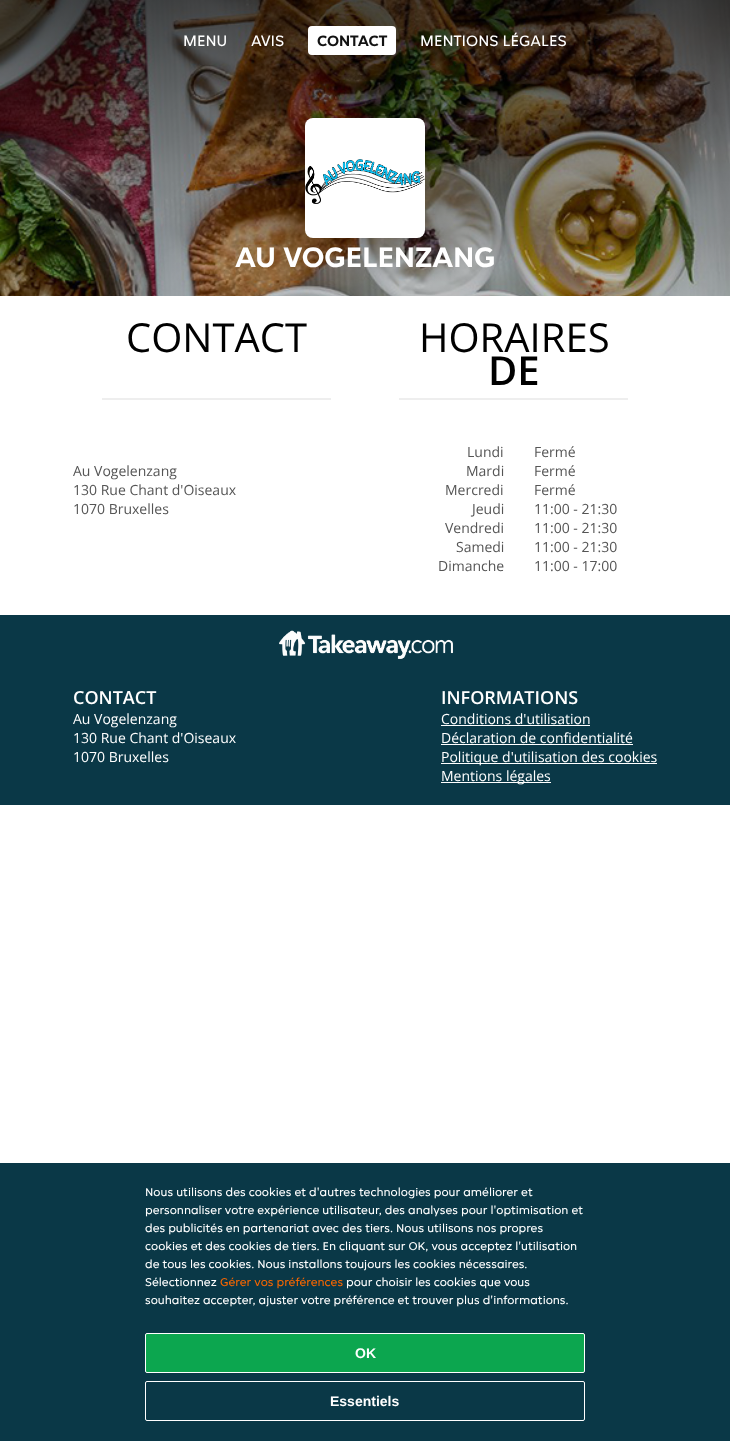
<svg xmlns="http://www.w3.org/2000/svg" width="730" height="1441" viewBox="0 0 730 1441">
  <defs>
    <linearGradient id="g1" gradientUnits="userSpaceOnUse" x1="365" y1="0" x2="365" y2="500"><stop offset="0" stop-color="#000" stop-opacity="0.7"/><stop offset="0.33" stop-color="#000" stop-opacity="0.4"/><stop offset="0.67" stop-color="#000" stop-opacity="0.2"/><stop offset="1" stop-color="#000" stop-opacity="0"/></linearGradient>
  </defs>
  <rect width="100%" height="100%" fill="#fff"/>
  <image x="0" y="0" width="730" height="296" href="img/1.png"/>
  <path d="M0 0h730v296H0z" fill="url(#g1)"/>
  <rect x="308" y="26" width="88" height="29" rx="4" fill="#fff"/>
  <rect x="305" y="118" width="120" height="120" rx="8" fill="#fff"/>
  <image x="305" y="159" width="120" height="45" href="img/2.png"/>
  <path d="M102 398h229v2H102z" fill="#eee"/>
  <path d="M399 398h229v2H399z" fill="#eee"/>
  <path d="M0 615h730v190H0z" fill="#0a3847"/>
  <image x="279" y="630" width="174" height="29" href="img/3.png"/>
  <path d="M441 725h149v1H441z" fill="#fff"/>
  <path d="M441 744h192v1H441z" fill="#fff"/>
  <path d="M441 763h216v1H441z" fill="#fff"/>
  <path d="M441 782h110v1H441z" fill="#fff"/>
  <path d="M0 1163h730v278H0z" fill="#0a3847"/>
  <rect x="145.5" y="1333.5" width="439" height="39" rx="1.5" fill="#0ca64f" stroke="#fff"/>
  <rect x="145.5" y="1381.5" width="439" height="39" rx="1.5" fill="none" stroke="#fff"/>
  <g font-family="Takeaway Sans" font-size="16" fill="#fff">
    <text x="183" y="46">MENU</text>
    <text x="251" y="46">AVIS</text>
  </g>
  <text x="317" y="46" font-family="Takeaway Sans" font-size="16" font-weight="bold" fill="#121212">CONTACT</text>
  <text x="420" y="46" font-family="Takeaway Sans" font-size="16" fill="#fff">MENTIONS LÉGALES</text>
  <text x="235" y="267" font-family="Takeaway Sans" font-size="30" font-weight="bold" fill="#fff">AU VOGELENZANG</text>
  <text x="126" y="352" font-family="Open Sans" font-size="40" fill="#000">CONTACT</text>
  <g font-family="Open Sans" font-size="14" fill="#555">
    <text x="73" y="476">Au Vogelenzang</text>
    <text x="73" y="495">130 Rue Chant d'Oiseaux</text>
    <text x="73" y="514">1070 Bruxelles</text>
  </g>
  <text x="419" y="352" font-family="Open Sans" font-size="40" fill="#000">HORAIRES</text>
  <text x="488" y="385" font-family="Open Sans" font-size="40" font-weight="600" fill="#000">DE</text>
  <g font-family="Open Sans" font-size="14" fill="#555">
    <text x="467" y="457">Lundi</text>
    <text x="534" y="457">Fermé</text>
    <text x="466" y="476">Mardi</text>
    <text x="534" y="476">Fermé</text>
    <text x="445" y="495">Mercredi</text>
    <text x="534" y="495">Fermé</text>
    <text x="472" y="514">Jeudi</text>
    <text x="534" y="514">11:00 - 21:30</text>
    <text x="445" y="533">Vendredi</text>
    <text x="534" y="533">11:00 - 21:30</text>
    <text x="456" y="552">Samedi</text>
    <text x="534" y="552">11:00 - 21:30</text>
    <text x="438" y="571">Dimanche</text>
    <text x="534" y="571">11:00 - 17:00</text>
  </g>
  <text x="73" y="704" font-family="Open Sans" font-size="18" font-weight="600" fill="#fff">CONTACT</text>
  <g font-family="Open Sans" font-size="14" fill="#fff">
    <text x="73" y="724">Au Vogelenzang</text>
    <text x="73" y="743">130 Rue Chant d'Oiseaux</text>
    <text x="73" y="762">1070 Bruxelles</text>
  </g>
  <text x="441" y="704" font-family="Open Sans" font-size="18" font-weight="600" fill="#fff">INFORMATIONS</text>
  <g font-family="Open Sans" font-size="14" fill="#fff">
    <text x="441" y="724">Conditions d'utilisation</text>
    <text x="441" y="743">Déclaration de confidentialité</text>
    <text x="441" y="762">Politique d'utilisation des cookies</text>
    <text x="441" y="781">Mentions légales</text>
  </g>
  <g font-family="Takeaway Sans" font-size="12" fill="#fff">
    <text x="145" y="1196">Nous utilisons des cookies et d'autres technologies pour améliorer et</text>
    <text x="145" y="1214">personnaliser votre expérience utilisateur, des analyses pour l'optimisation et</text>
    <text x="145" y="1232">des publicités en partenariat avec des tiers. Nous utilisons nos propres</text>
    <text x="145" y="1250">cookies et des cookies de tiers. En cliquant sur OK, vous acceptez l'utilisation</text>
    <text x="145" y="1268">de tous les cookies. Nous installons toujours les cookies nécessaires.</text>
    <text x="145" y="1286">Sélectionnez</text>
  </g>
  <text x="220" y="1286" font-family="Takeaway Sans" font-size="12" fill="#f86600">Gérer vos préférences</text>
  <g font-family="Takeaway Sans" font-size="12" fill="#fff">
    <text x="346" y="1286">pour choisir les cookies que vous</text>
    <text x="145" y="1304">souhaitez accepter, ajuster votre préférence et trouver plus d'informations.</text>
  </g>
  <g font-family="Liberation Sans" font-size="14" font-weight="bold" fill="#fff">
    <text x="355" y="1358">OK</text>
    <text x="330" y="1406">Essentiels</text>
  </g>
</svg>
